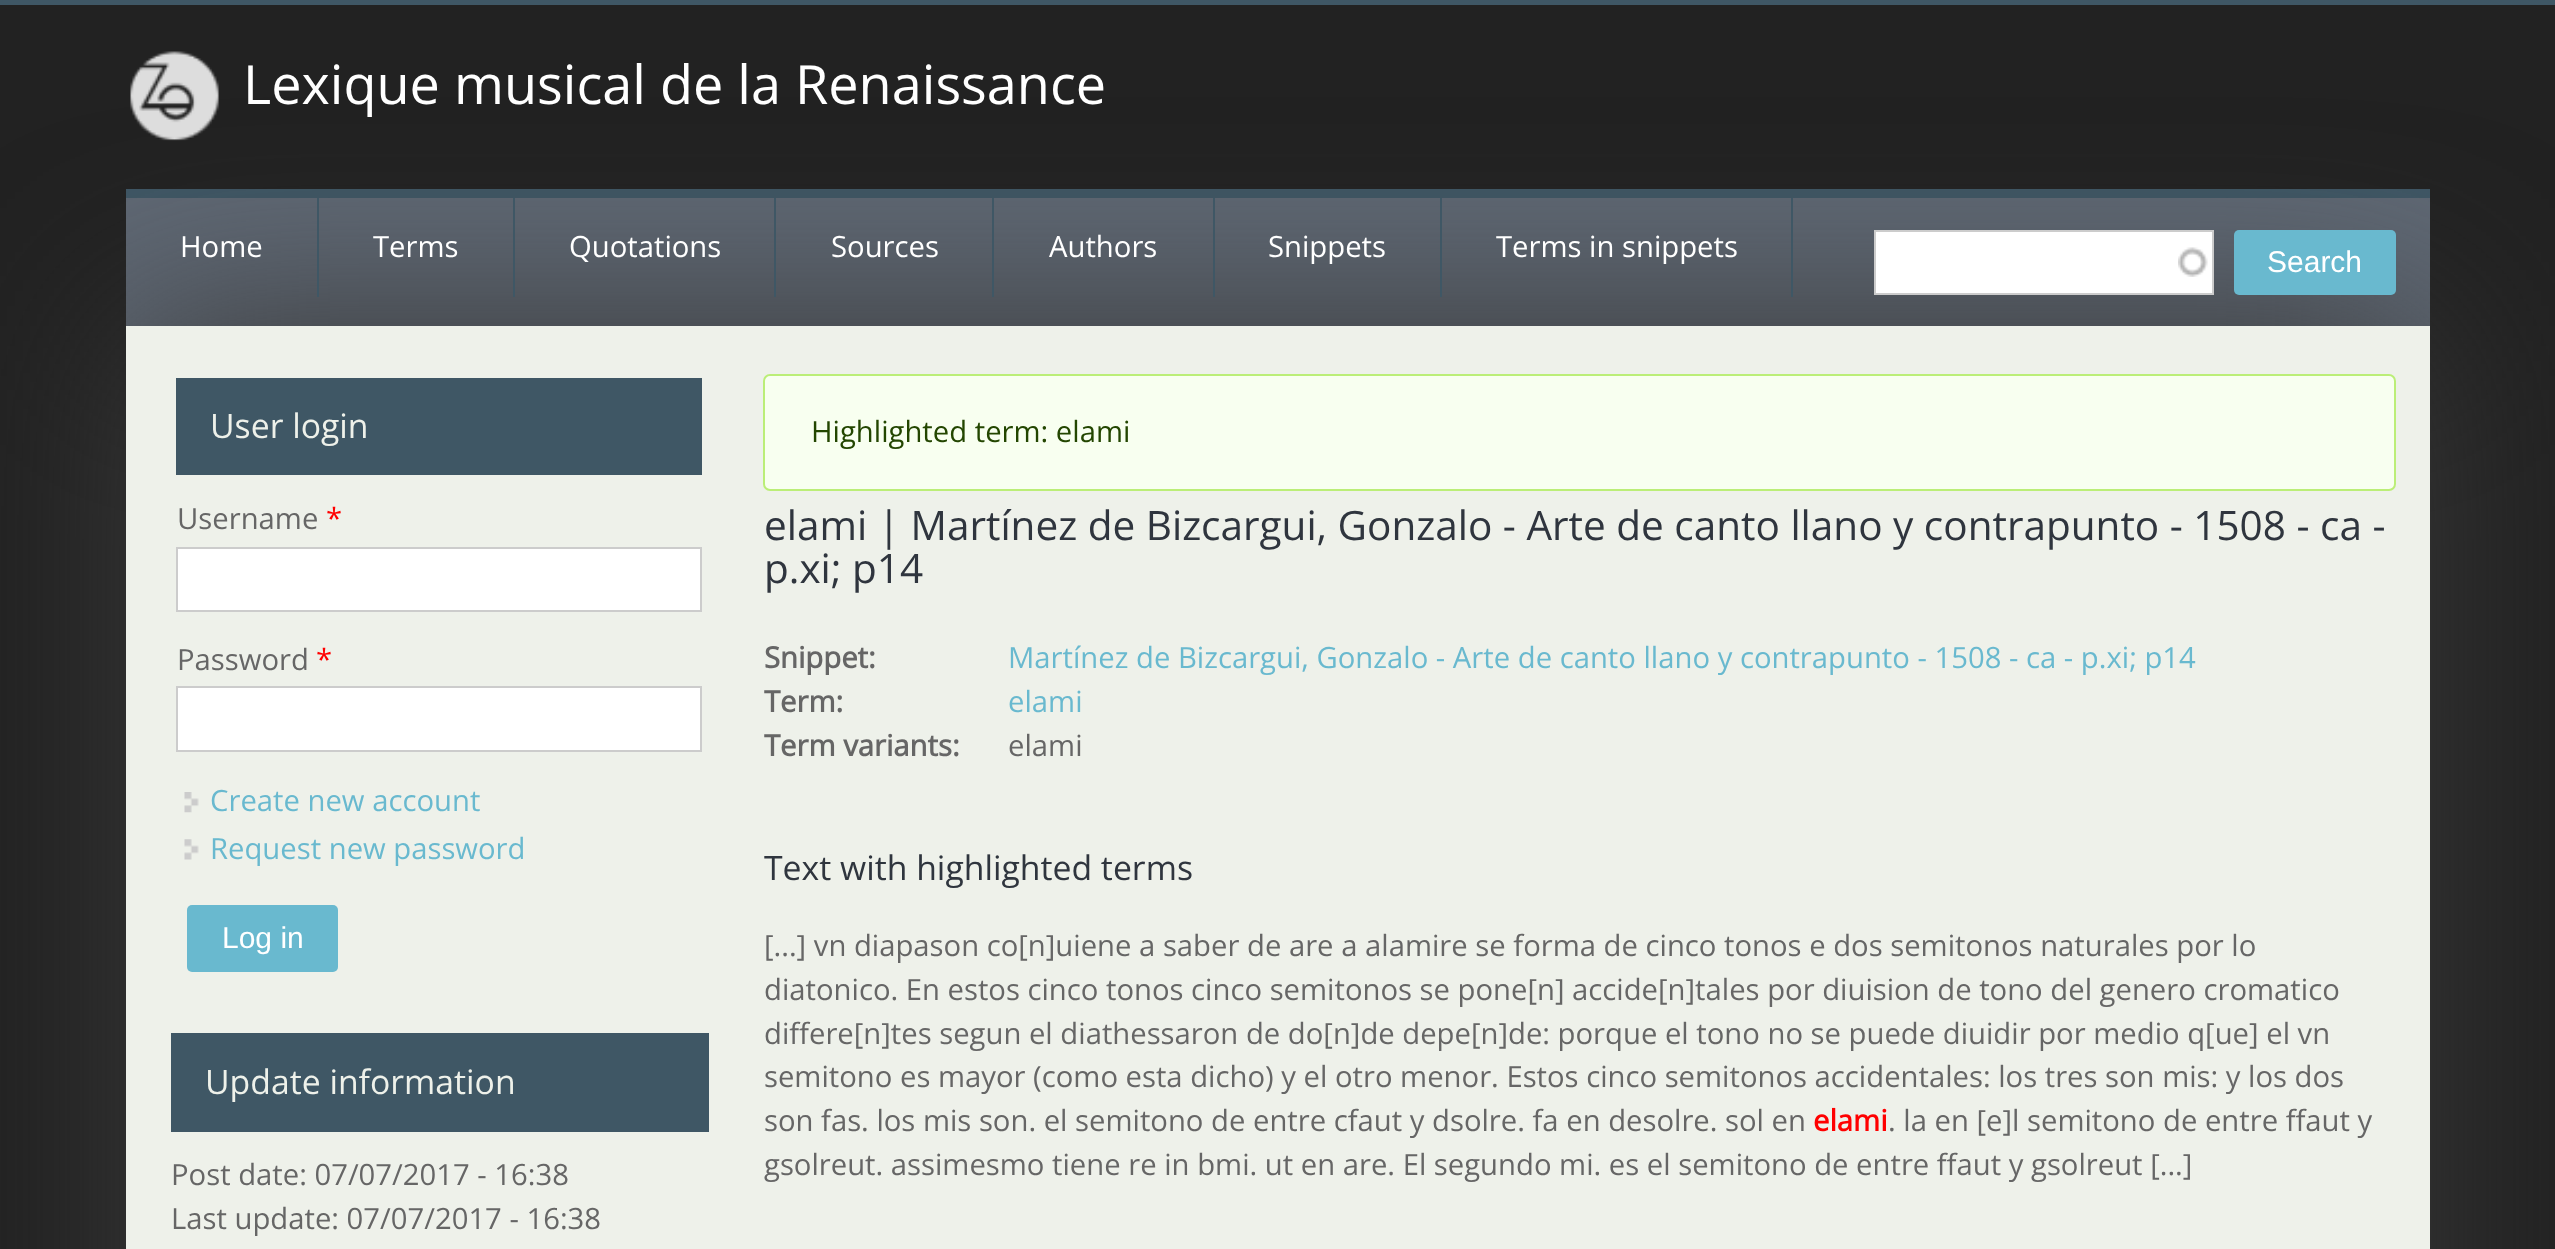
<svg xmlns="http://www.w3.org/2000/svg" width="2555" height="1249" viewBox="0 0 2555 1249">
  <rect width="100%" height="100%" fill="#222"/>
  <path d="M0 0h2555v5H0z" fill="#3f5765"/>
  <path d="M126 198h2304v128H126z" fill="#5f6874"/>
  <path d="M126 189h2304v9H126z" fill="#3f5765"/>
  <path d="M126 326h2304v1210H126z" fill="#383838" filter="blur(95.5px)"/>
  <image x="130" y="51" width="89" height="90" href="img/1.png"/>
  <path d="M317 198h2v99H317z" fill="#3f5765"/>
  <path d="M513 198h2v99H513z" fill="#3f5765"/>
  <path d="M774 198h2v99H774z" fill="#3f5765"/>
  <path d="M992 198h2v99H992z" fill="#3f5765"/>
  <path d="M1213 198h2v99H1213z" fill="#3f5765"/>
  <path d="M1440 198h2v99H1440z" fill="#3f5765"/>
  <path d="M1791 198h2v99H1791z" fill="#3f5765"/>
  <path d="M1876 232h336v61H1876z" fill="#fff"/>
  <image x="2178" y="247" width="30" height="30" href="img/2.png"/>
  <path d="M1875 231h338v63H1875z" fill="none" stroke="#ccc" stroke-width="2"/>
  <rect x="2234" y="230" width="162" height="65" rx="5" fill="#69b9cf"/>
  <path d="M126 326h2304v923H126z" fill="#eef1ea"/>
  <path d="M176 378h526v97H176z" fill="#3f5765"/>
  <path d="M177 548h524v63H177z" fill="#fff" stroke="#ccc" stroke-width="2"/>
  <path d="M177 687h524v64H177z" fill="#fff" stroke="#ccc" stroke-width="2"/>
  <image x="184" y="792" width="15" height="21" href="img/3.png"/>
  <image x="184" y="839" width="15" height="21" href="img/4.png"/>
  <rect x="187" y="905" width="151" height="67" rx="5" fill="#69b9cf"/>
  <path d="M171 1033h538v99H171z" fill="#3f5765"/>
  <rect x="764" y="375" width="1631" height="115" rx="6" fill="#f8fff0" stroke="#be7" stroke-width="2"/>
  <text x="243" y="104" font-family="Open Sans" font-size="54" fill="#fff">Lexique musical de la Renaissance</text>
  <g font-family="Open Sans" font-size="29.25" fill="#fff">
    <text x="180" y="257">Home</text>
    <text x="373" y="257">Terms</text>
    <text x="569" y="257">Quotations</text>
    <text x="831" y="257">Sources</text>
    <text x="1049" y="257">Authors</text>
    <text x="1268" y="257">Snippets</text>
    <text x="1496" y="257">Terms in snippets</text>
  </g>
  <text x="2267" y="272" font-family="Liberation Sans" font-size="30" fill="#fff">Search</text>
  <text x="210" y="438" font-family="Open Sans" font-size="33.75" fill="#eef1ea">User login</text>
  <text x="177" y="529" font-family="Open Sans" font-size="29.25" fill="#666">Username</text>
  <text x="326" y="529" font-family="Open Sans" font-size="29.25" fill="#f00">*</text>
  <text x="177" y="670" font-family="Open Sans" font-size="29.25" fill="#666">Password</text>
  <text x="316" y="670" font-family="Open Sans" font-size="29.25" fill="#f00">*</text>
  <g font-family="Open Sans" font-size="29.25" fill="#69b9cf">
    <text x="210" y="811">Create new account</text>
    <text x="210" y="859">Request new password</text>
  </g>
  <text x="222" y="948" font-family="Liberation Sans" font-size="30" fill="#fff">Log in</text>
  <text x="205" y="1094" font-family="Open Sans" font-size="33.75" fill="#eef1ea">Update information</text>
  <g font-family="Open Sans" font-size="29.25" fill="#666">
    <text x="171" y="1185">Post date: 07/07/2017 - 16:38</text>
    <text x="171" y="1229">Last update: 07/07/2017 - 16:38</text>
  </g>
  <text x="811" y="442" font-family="Open Sans" font-size="29.25" fill="#234600">Highlighted term: elami</text>
  <g font-family="Open Sans" font-size="40.5" fill="#2f353e">
    <text x="764" y="540">elami | Martínez de Bizcargui, Gonzalo - Arte de canto llano y contrapunto - 1508 - ca -</text>
    <text x="764" y="583">p.xi; p14</text>
  </g>
  <text x="764" y="668" font-family="Open Sans" font-size="29.25" font-weight="bold" fill="#666">Snippet:</text>
  <text x="1008" y="668" font-family="Open Sans" font-size="29.25" fill="#69b9cf">Martínez de Bizcargui, Gonzalo - Arte de canto llano y contrapunto - 1508 - ca - p.xi; p14</text>
  <text x="764" y="712" font-family="Open Sans" font-size="29.25" font-weight="bold" fill="#666">Term:</text>
  <text x="1008" y="712" font-family="Open Sans" font-size="29.25" fill="#69b9cf">elami</text>
  <text x="764" y="756" font-family="Open Sans" font-size="29.25" font-weight="bold" fill="#666">Term variants:</text>
  <text x="1008" y="756" font-family="Open Sans" font-size="29.25" fill="#666">elami</text>
  <text x="764" y="880" font-family="Open Sans" font-size="33.75" fill="#2f353e">Text with highlighted terms</text>
  <g font-family="Open Sans" font-size="29.25" fill="#666">
    <text x="764" y="956">[...] vn diapason co[n]uiene a saber de are a alamire se forma de cinco tonos e dos semitonos naturales por lo</text>
    <text x="764" y="1000">diatonico. En estos cinco tonos cinco semitonos se pone[n] accide[n]tales por diuision de tono del genero cromatico</text>
    <text x="764" y="1044">differe[n]tes segun el diathessaron de do[n]de depe[n]de: porque el tono no se puede diuidir por medio q[ue] el vn</text>
    <text x="764" y="1087">semitono es mayor (como esta dicho) y el otro menor. Estos cinco semitonos accidentales: los tres son mis: y los dos</text>
    <text x="764" y="1131">son fas. los mis son. el semitono de entre cfaut y dsolre. fa en desolre. sol en</text>
  </g>
  <text x="1813" y="1131" font-family="Open Sans" font-size="29.25" font-weight="bold" fill="#f00">elami</text>
  <g font-family="Open Sans" font-size="29.25" fill="#666">
    <text x="1888" y="1131">. la en [e]l semitono de entre ffaut y</text>
    <text x="764" y="1175">gsolreut. assimesmo tiene re in bmi. ut en are. El segundo mi. es el semitono de entre ffaut y gsolreut [...]</text>
  </g>
</svg>
